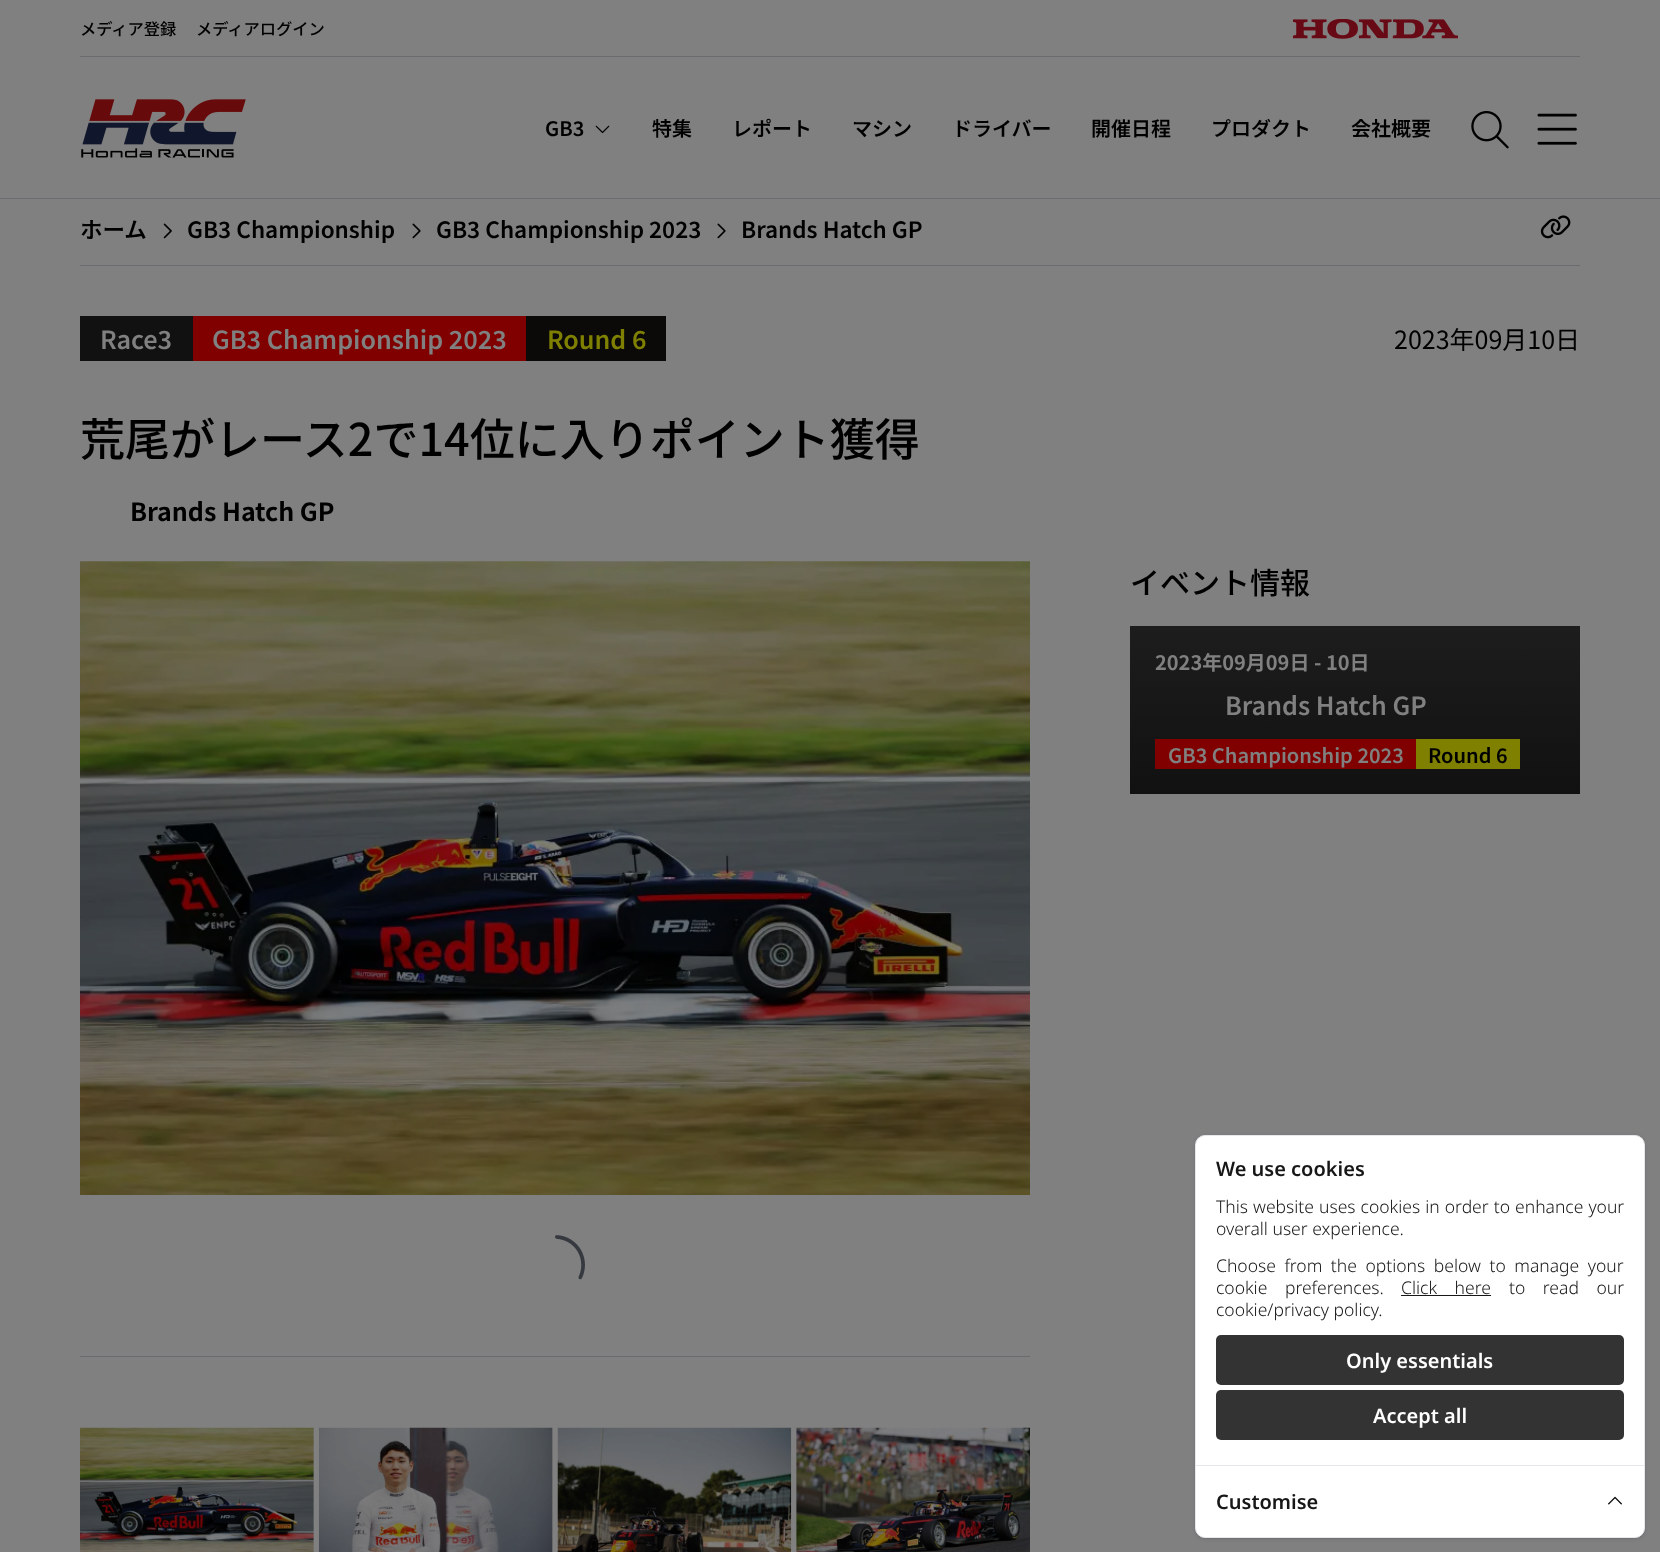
<svg xmlns="http://www.w3.org/2000/svg" width="1660" height="1552" viewBox="0 0 1660 1552">
  <defs>
    <linearGradient id="g1" gradientUnits="userSpaceOnUse" x1="1355" y1="794" x2="1355" y2="626"><stop offset="0" stop-color="#111"/><stop offset="1" stop-color="#1d1d1d"/></linearGradient>
  </defs>
  <rect width="100%" height="100%" fill="#808080"/>
  <path d="M0 198h1660v1H0z" fill="#696b6e"/>
  <path d="M80 56h1500v1H80z" fill="#696b6e"/>
  <image x="1293" y="19" width="165" height="20" href="img/1.png"/>
  <image x="81" y="99" width="165" height="59" href="img/2.png"/>
  <image x="595" y="125" width="15" height="9" href="img/3.png"/>
  <image x="1471" y="110" width="38" height="39" href="img/4.png"/>
  <image x="1537" y="113" width="40" height="32" href="img/5.png"/>
  <path d="M80 265h1500v1H80z" fill="#696b6e"/>
  <image x="163" y="223" width="9" height="16" href="img/6.png"/>
  <image x="412" y="223" width="9" height="16" href="img/7.png"/>
  <image x="717" y="223" width="9" height="16" href="img/7.png"/>
  <image x="1540" y="215" width="31" height="24" href="img/8.png"/>
  <path d="M80 316h113v45H80z" fill="#111"/>
  <path d="M193 316h333v45H193z" fill="#800000"/>
  <path d="M526 316h140v45H526z" fill="#0b0a09"/>
  <image x="80" y="561" width="950" height="634" href="img/9.png"/>
  <image x="555" y="1235" width="30" height="45" href="img/10.png"/>
  <path d="M80 1356h950v1H80z" fill="#696b6e"/>
  <path d="M313 1428h1v124H313z" fill="#777"/>
  <image x="80" y="1427" width="234" height="125" href="img/11.png"/>
  <path d="M552 1428h1v124H552z" fill="#777"/>
  <image x="318" y="1427" width="235" height="125" href="img/12.png"/>
  <image x="557" y="1427" width="235" height="125" href="img/13.png"/>
  <path d="M796 1428h1v124H796z" fill="#777"/>
  <image x="796" y="1427" width="234" height="125" href="img/14.png"/>
  <path d="M1130 626h450v168H1130z" fill="url(#g1)"/>
  <path d="M1155 739h261v30H1155z" fill="#800000"/>
  <path d="M1416 739h104v30H1416z" fill="#808000"/>
  <rect x="1196" y="1138" width="448" height="400" rx="9" fill="#0000001a" filter="blur(1px)"/>
  <rect x="1195" y="1136" width="450" height="403" rx="10" fill="#0000001a" filter="blur(2px)"/>
  <rect x="1195.5" y="1135.5" width="449" height="402" rx="9.5" fill="#fff" stroke="#e5e7eb"/>
  <path d="M1401 1295h90v1H1401z" fill="#171717"/>
  <rect x="1216" y="1335" width="408" height="50" rx="5" fill="#333"/>
  <rect x="1216" y="1390" width="408" height="50" rx="5" fill="#333"/>
  <path d="M1196 1465h448v1H1196z" fill="#e5e7eb"/>
  <image x="1608" y="1496" width="14" height="9" href="img/15.png"/>
  <g font-family="Noto Sans JP" font-size="16.25" font-weight="500" fill="#000">
    <text x="80" y="35">メディア登録</text>
    <text x="196" y="35">メディアログイン</text>
  </g>
  <g font-family="Noto Sans JP" font-size="20" font-weight="600" fill="#000">
    <text x="545" y="136">GB3</text>
    <text x="652" y="136">特集</text>
    <text x="732" y="136">レポート</text>
    <text x="852" y="136">マシン</text>
    <text x="952" y="136">ドライバー</text>
    <text x="1091" y="136">開催日程</text>
    <text x="1211" y="136">プロダクト</text>
    <text x="1351" y="136">会社概要</text>
  </g>
  <g font-family="Noto Sans JP" font-size="22.5" font-weight="600" fill="#000">
    <text x="80" y="238">ホーム</text>
    <text x="187" y="238">GB3 Championship</text>
    <text x="436" y="238">GB3 Championship 2023</text>
    <text x="741" y="238">Brands Hatch GP</text>
  </g>
  <g font-family="Noto Sans JP" font-size="25" font-weight="600" fill="#808080">
    <text x="100" y="349">Race3</text>
    <text x="212" y="349">GB3 Championship 2023</text>
  </g>
  <text x="547" y="349" font-family="Noto Sans JP" font-size="25" font-weight="600" fill="#808000">Round 6</text>
  <text x="1394" y="349" font-family="Noto Sans JP" font-size="25" fill="#000">2023年09月10日</text>
  <text x="80" y="456" font-family="Noto Sans JP" font-size="45" font-weight="500" fill="#000">荒尾がレース2で14位に入りポイント獲得</text>
  <text x="130" y="521" font-family="Noto Sans JP" font-size="25" font-weight="bold" fill="#000">Brands Hatch GP</text>
  <text x="1130" y="594" font-family="Noto Sans JP" font-size="30" font-weight="500" fill="#000">イベント情報</text>
  <text x="1155" y="670" font-family="Noto Sans JP" font-size="20" font-weight="bold" fill="#808080">2023年09月09日 - 10日</text>
  <text x="1225" y="715" font-family="Noto Sans JP" font-size="25" font-weight="600" fill="#808080">Brands Hatch GP</text>
  <text x="1168" y="763" font-family="Noto Sans JP" font-size="20" font-weight="600" fill="#808080">GB3 Championship 2023</text>
  <text x="1428" y="763" font-family="Noto Sans JP" font-size="20" font-weight="600" fill="#000">Round 6</text>
  <text x="1216" y="1176" font-family="Noto Sans" font-size="20" font-weight="600" fill="#171717">We use cookies</text>
  <g font-family="Noto Sans" font-size="17.5" font-weight="300" fill="#171717">
    <text x="1216" y="1213" word-spacing="0.5">This website uses cookies in order to enhance your</text>
    <text x="1216" y="1235">overall user experience.</text>
    <text x="1216" y="1272" word-spacing="4">Choose from the options below to manage your</text>
    <text x="1216" y="1294" word-spacing="13">cookie preferences.</text>
    <text x="1401" y="1294" word-spacing="13">Click here</text>
    <text x="1509" y="1294" word-spacing="13">to read our</text>
    <text x="1216" y="1316">cookie/privacy policy.</text>
  </g>
  <g font-family="Noto Sans" font-size="20" font-weight="600" fill="#fff">
    <text x="1346" y="1368">Only essentials</text>
    <text x="1373" y="1423">Accept all</text>
  </g>
  <text x="1216" y="1509" font-family="Noto Sans" font-size="20" font-weight="600" fill="#171717">Customise</text>
</svg>
